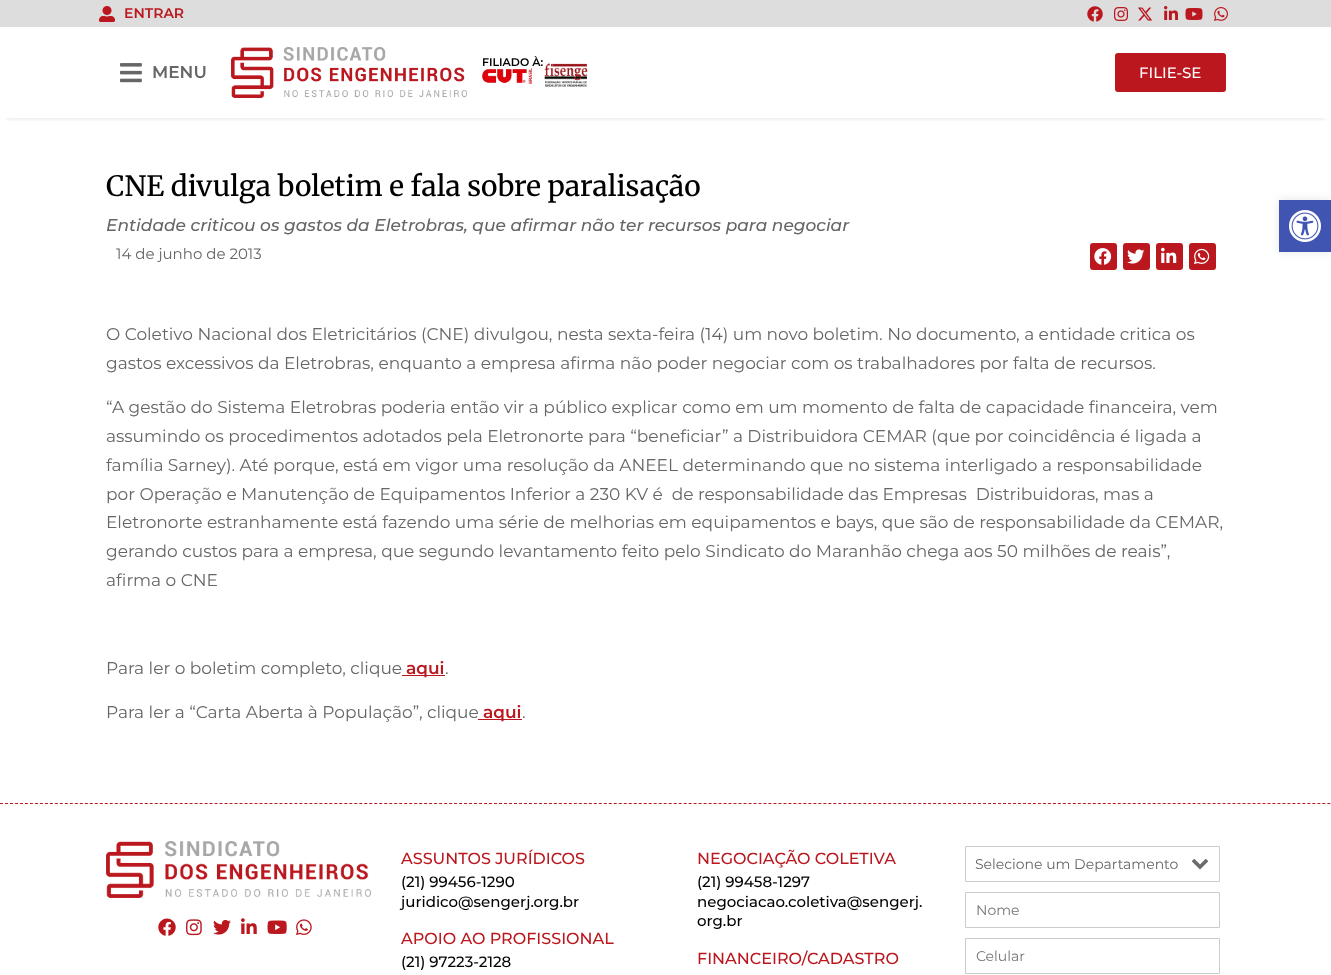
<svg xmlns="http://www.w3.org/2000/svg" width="1331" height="975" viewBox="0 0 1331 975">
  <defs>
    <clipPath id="clip1"><path d="M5 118h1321v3H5z"/></clipPath>
  </defs>
  <rect width="100%" height="100%" fill="#fff"/>
  <path d="M0 0h1331v27H0z" fill="#ddd"/>
  <image x="99" y="6" width="16" height="16" href="img/1.png"/>
  <image x="1087" y="6" width="16" height="16" href="img/2.png"/>
  <image x="1114" y="7" width="14" height="14" href="img/3.png"/>
  <image x="1138" y="7" width="15" height="14" href="img/4.png"/>
  <image x="1164" y="6" width="14" height="14" href="img/5.png"/>
  <image x="1185" y="8" width="18" height="12" href="img/6.png"/>
  <image x="1214" y="7" width="14" height="14" href="img/7.png"/>
  <g clip-path="url(#clip1)">
    <path d="M6 39h1319v79H6z" fill="#0000001f" filter="blur(3px)"/>
  </g>
  <image x="231" y="47" width="236" height="51" href="img/8.png"/>
  <image x="482" y="68" width="50" height="16" href="img/9.png"/>
  <image x="544" y="63" width="44" height="24" href="img/10.png"/>
  <image x="120" y="63" width="22" height="20" href="img/11.png"/>
  <rect x="1115" y="53" width="111" height="39" rx="3" fill="#bb171e"/>
  <rect x="1090" y="243" width="27" height="27" rx="3" fill="#bb171e"/>
  <image x="1094" y="248" width="18" height="17" href="img/12.png"/>
  <rect x="1123" y="243" width="27" height="27" rx="3" fill="#bb171e"/>
  <image x="1127" y="249" width="18" height="15" href="img/13.png"/>
  <rect x="1156" y="243" width="27" height="27" rx="3" fill="#bb171e"/>
  <image x="1161" y="247" width="16" height="16" href="img/14.png"/>
  <rect x="1189" y="243" width="27" height="27" rx="3" fill="#bb171e"/>
  <image x="1194" y="248" width="16" height="16" href="img/15.png"/>
  <path d="M402 675h43v1H402z" fill="#bb171e"/>
  <path d="M478 719h44v1H478z" fill="#bb171e"/>
  <path d="M1279 200h52v52H1279z" fill="#0000001a" filter="blur(5px)"/>
  <path d="M1279 200h52v52H1279z" fill="#4054b2"/>
  <image x="1289" y="210" width="32" height="32" href="img/16.png"/>
  <path d="M0 803.5H1331" fill="none" stroke="#bb171e" stroke-dasharray="3 1.99"/>
  <image x="106" y="841" width="265" height="57" href="img/17.png"/>
  <image x="158" y="918" width="18" height="18" href="img/18.png"/>
  <image x="186" y="919" width="16" height="17" href="img/19.png"/>
  <image x="213" y="919" width="18" height="16" href="img/20.png"/>
  <image x="241" y="918" width="16" height="16" href="img/21.png"/>
  <image x="267" y="920" width="20" height="14" href="img/22.png"/>
  <image x="296" y="919" width="16" height="17" href="img/23.png"/>
  <path d="M965.5 846.5h254v35H965.5z" fill="none" stroke="#ccc"/>
  <image x="1192" y="859" width="16" height="11" href="img/24.png"/>
  <path d="M965.5 892.5h254v35H965.5z" fill="none" stroke="#ccc"/>
  <path d="M965.5 938.5h254v35H965.5z" fill="none" stroke="#ccc"/>
  <text x="124" y="18" font-family="Montserrat" font-size="14" font-weight="600" fill="#bb171e">ENTRAR</text>
  <text x="482" y="66" font-family="Montserrat" font-size="11" font-weight="600" fill="#000">FILIADO À:</text>
  <text x="152" y="78" font-family="Montserrat" font-size="17" font-weight="600" fill="#666">MENU</text>
  <text x="1139" y="78" font-family="Montserrat" font-size="15" font-weight="500" fill="#fff">FILIE-SE</text>
  <text x="106" y="196" font-family="Merriweather" font-size="28" font-weight="500" fill="#000">CNE divulga boletim e fala sobre paralisação</text>
  <text x="106" y="231" font-family="Montserrat" font-size="17" font-weight="500" font-style="italic" fill="#666">Entidade criticou os gastos da Eletrobras, que afirmar não ter recursos para negociar</text>
  <text x="116" y="259" font-family="Montserrat" font-size="15" fill="#666">14 de junho de 2013</text>
  <g font-family="Montserrat" font-size="17" fill="#666">
    <text x="106" y="340">O Coletivo Nacional dos Eletricitários (CNE) divulgou, nesta sexta-feira (14) um novo boletim. No documento, a entidade critica os</text>
    <text x="106" y="369">gastos excessivos da Eletrobras, enquanto a empresa afirma não poder negociar com os trabalhadores por falta de recursos.</text>
    <text x="106" y="413">“A gestão do Sistema Eletrobras poderia então vir a público explicar como em um momento de falta de capacidade financeira, vem</text>
    <text x="106" y="442">assumindo os procedimentos adotados pela Eletronorte para “beneficiar” a Distribuidora CEMAR (que por coincidência é ligada a</text>
    <text x="106" y="471">família Sarney). Até porque, está em vigor uma resolução da ANEEL determinando que no sistema interligado a responsabilidade</text>
    <text x="106" y="500" xml:space="preserve">por Operação e Manutenção de Equipamentos Inferior a 230 KV é  de responsabilidade das Empresas  Distribuidoras, mas a</text>
    <text x="106" y="528">Eletronorte estranhamente está fazendo uma série de melhorias em equipamentos e bays, que são de responsabilidade da CEMAR,</text>
    <text x="106" y="557">gerando custos para a empresa, que segundo levantamento feito pelo Sindicato do Maranhão chega aos 50 milhões de reais”,</text>
    <text x="106" y="586">afirma o CNE</text>
    <text x="106" y="674">Para ler o boletim completo, clique</text>
  </g>
  <text x="406" y="674" font-family="Montserrat" font-size="17" font-weight="600" fill="#bb171e">aqui</text>
  <g font-family="Montserrat" font-size="17" fill="#666">
    <text x="445" y="674">.</text>
    <text x="106" y="718">Para ler a “Carta Aberta à População”, clique</text>
  </g>
  <text x="483" y="718" font-family="Montserrat" font-size="17" font-weight="600" fill="#bb171e">aqui</text>
  <text x="522" y="718" font-family="Montserrat" font-size="17" fill="#666">.</text>
  <text x="401" y="864" font-family="Montserrat" font-size="16" font-weight="500" fill="#bb171e">ASSUNTOS JURÍDICOS</text>
  <g font-family="Montserrat" font-size="15" font-weight="500" fill="#000">
    <text x="401" y="887">(21) 99456-1290</text>
    <text x="401" y="907">juridico@sengerj.org.br</text>
  </g>
  <text x="401" y="944" font-family="Montserrat" font-size="16" font-weight="500" fill="#bb171e">APOIO AO PROFISSIONAL</text>
  <text x="401" y="967" font-family="Montserrat" font-size="15" font-weight="500" fill="#000">(21) 97223-2128</text>
  <text x="697" y="864" font-family="Montserrat" font-size="16" font-weight="500" fill="#bb171e">NEGOCIAÇÃO COLETIVA</text>
  <g font-family="Montserrat" font-size="15" font-weight="500" fill="#000">
    <text x="697" y="887">(21) 99458-1297</text>
    <text x="697" y="907">negociacao.coletiva@sengerj.</text>
    <text x="697" y="926">org.br</text>
  </g>
  <text x="697" y="964" font-family="Montserrat" font-size="16" font-weight="500" fill="#bb171e">FINANCEIRO/CADASTRO</text>
  <text x="975" y="869" font-family="Montserrat" font-size="14" fill="#666">Selecione um Departamento</text>
  <g font-family="Montserrat" font-size="14" fill="#757575">
    <text x="976" y="915">Nome</text>
    <text x="976" y="961">Celular</text>
  </g>
</svg>
